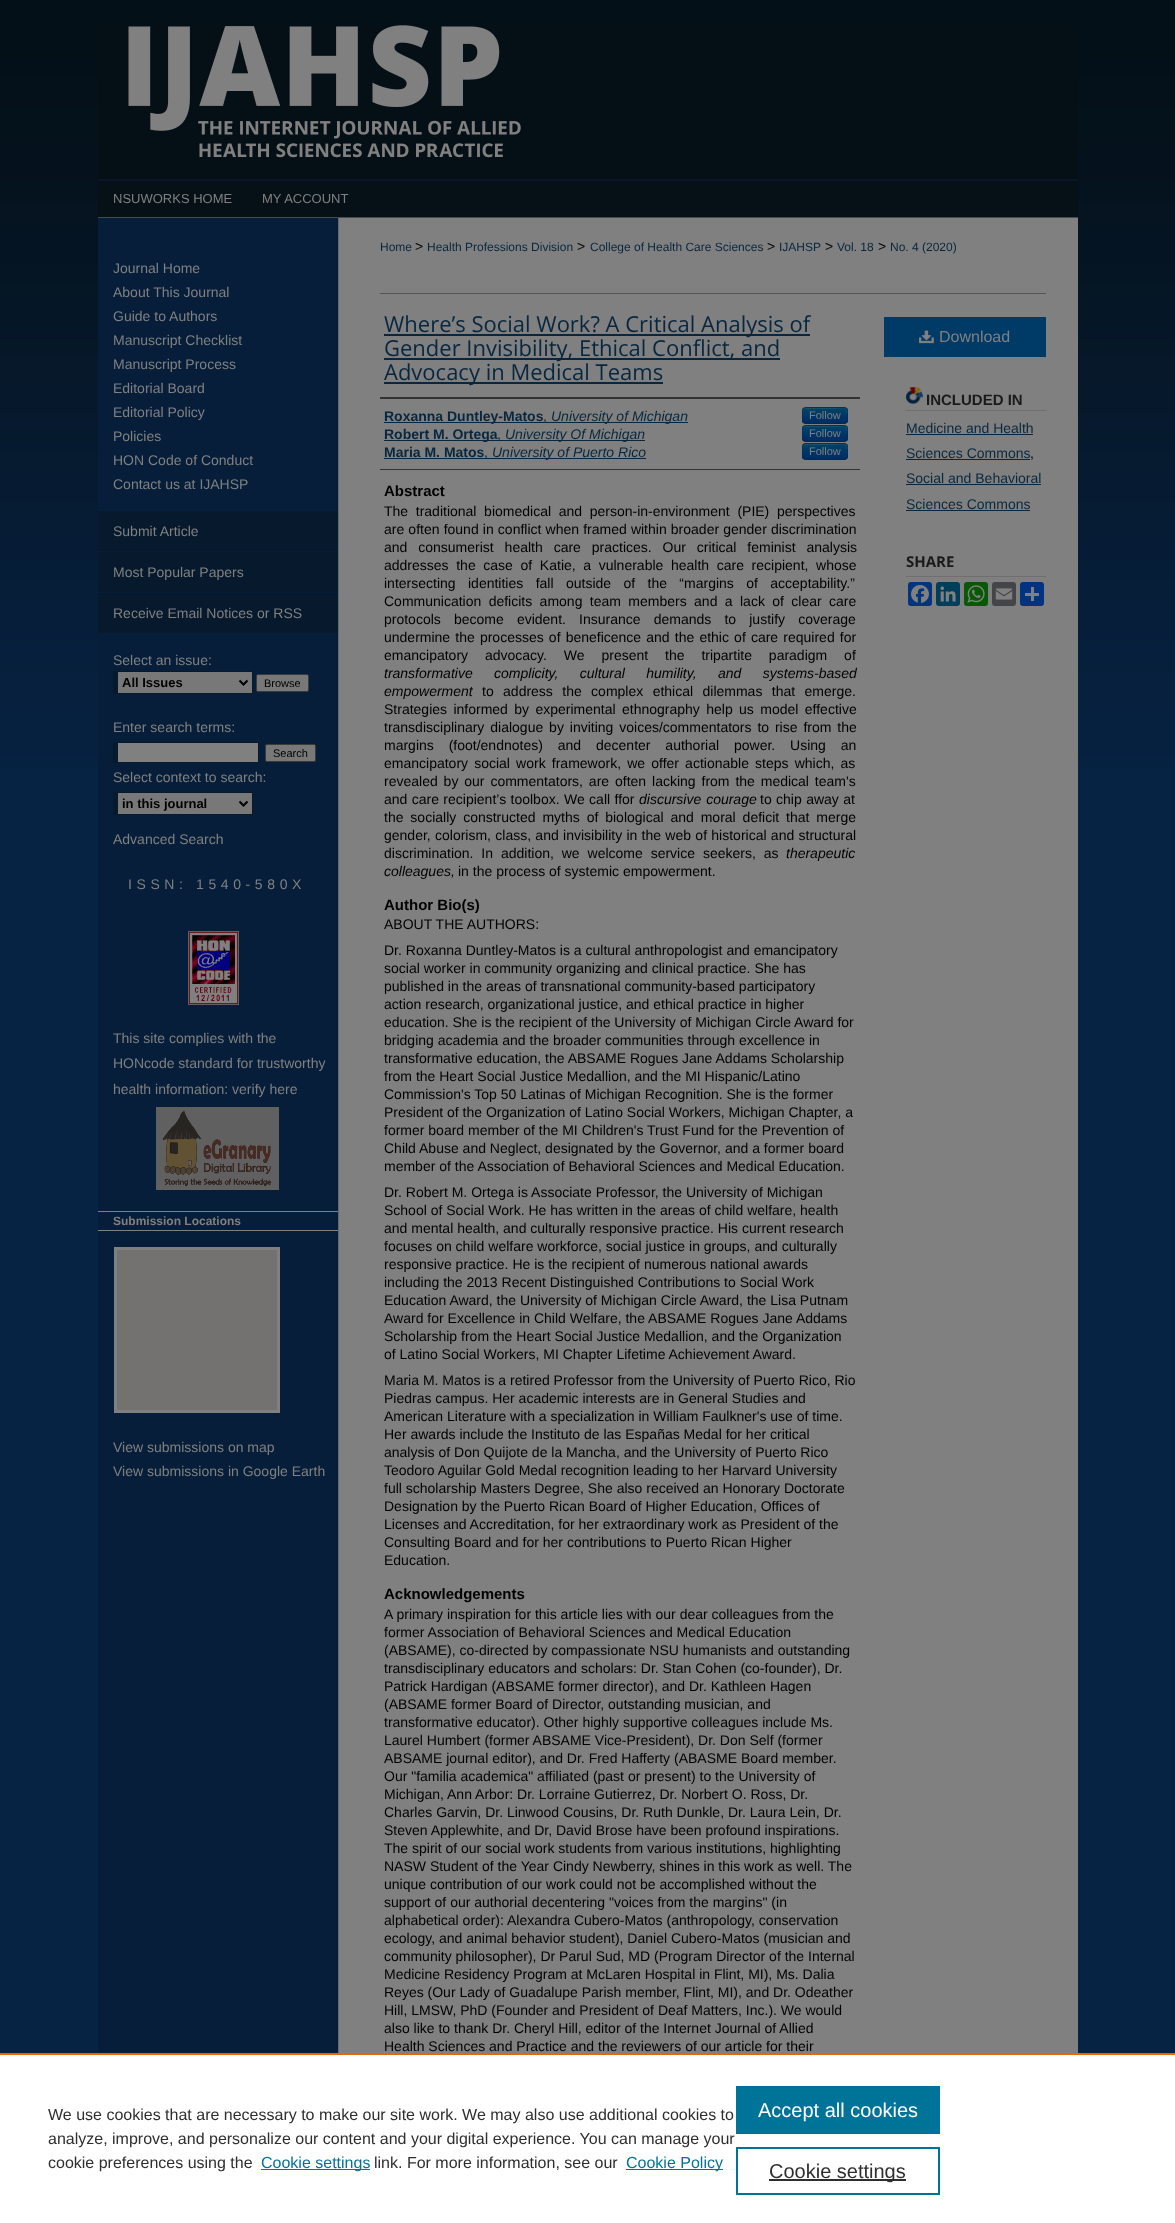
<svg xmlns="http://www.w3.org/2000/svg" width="1175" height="2223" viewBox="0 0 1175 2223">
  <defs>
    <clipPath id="clip1"><rect x="802" y="407" width="46" height="17" rx="4"/></clipPath>
    <linearGradient id="g1" gradientUnits="userSpaceOnUse" x1="825" y1="408" x2="825" y2="423"><stop offset="0" stop-color="#046"/><stop offset="1" stop-color="#002b66"/></linearGradient>
    <clipPath id="clip2"><rect x="802" y="425" width="46" height="17" rx="4"/></clipPath>
    <linearGradient id="g2" gradientUnits="userSpaceOnUse" x1="825" y1="426" x2="825" y2="441"><stop offset="0" stop-color="#046"/><stop offset="1" stop-color="#002b66"/></linearGradient>
    <clipPath id="clip3"><rect x="802" y="443" width="46" height="17" rx="4"/></clipPath>
    <linearGradient id="g3" gradientUnits="userSpaceOnUse" x1="825" y1="444" x2="825" y2="459"><stop offset="0" stop-color="#046"/><stop offset="1" stop-color="#002b66"/></linearGradient>
  </defs>
  <rect width="100%" height="100%" fill="#072344"/>
  <image x="0" y="0" width="1175" height="767" href="img/1.png"/>
  <image x="98" y="25" width="980" height="155" href="img/2.png"/>
  <path d="M98 181h980v36H98z" fill="#051017"/>
  <path d="M98 180h980v1H98z" fill="#061728"/>
  <path d="M98 217h980v1H98z" fill="#464b4f"/>
  <image x="98" y="218" width="250" height="1835" href="img/3.png"/>
  <path d="M98 511h240v40H98z" fill="#06192d"/>
  <path d="M98 552h240v40H98z" fill="#06192d"/>
  <path d="M98 593h240v40H98z" fill="#06192d"/>
  <path d="M118 672h134v21H118z" fill="#787878"/>
  <path d="M113 671h140v1H113z" fill="#06192d"/>
  <path d="M252 671h1v23H252z" fill="#06192d"/>
  <path d="M113 693h140v1H113z" fill="#06192d"/>
  <path d="M113 671h5v23H113z" fill="#06192d"/>
  <path d="M239.5 680.5L243.5 684.5L247.5 680.5" fill="none" stroke="#000" stroke-width="2"/>
  <rect x="256.5" y="674.5" width="52" height="17" rx="1.5" fill="#787878" stroke="#3b3b3b"/>
  <path d="M118 743h140v19H118z" fill="#808080"/>
  <path d="M113 742h146v1H113z" fill="#06192d"/>
  <path d="M258 742h1v21H258z" fill="#06192d"/>
  <path d="M113 762h146v1H113z" fill="#06192d"/>
  <path d="M113 742h5v21H113z" fill="#06192d"/>
  <rect x="265.5" y="744.5" width="50" height="17" rx="1.5" fill="#787878" stroke="#3b3b3b"/>
  <path d="M118 793h134v21H118z" fill="#787878"/>
  <path d="M113 792h140v1H113z" fill="#06192d"/>
  <path d="M252 792h1v23H252z" fill="#06192d"/>
  <path d="M113 814h140v1H113z" fill="#06192d"/>
  <path d="M113 792h5v23H113z" fill="#06192d"/>
  <path d="M239.5 801.5L243.5 805.5L247.5 801.5" fill="none" stroke="#000" stroke-width="2"/>
  <image x="188" y="931" width="51" height="74" href="img/4.png"/>
  <image x="156" y="1107" width="123" height="83" href="img/5.png"/>
  <path d="M98 1211h240v1H98z" fill="#808080"/>
  <path d="M98 1230h240v1H98z" fill="#808080"/>
  <path d="M115.5 1248.5h163v163H115.5z" fill="none" stroke="#808080" stroke-width="3"/>
  <path d="M117 1250h160v160H117z" fill="#737270"/>
  <path d="M348 218h730v1835H348z" fill="#808080"/>
  <path d="M380 293h666v1H380z" fill="#555"/>
  <path d="M384 334h426v2H384z" fill="#08273e"/>
  <path d="M384 358h396v2H384z" fill="#08273e"/>
  <path d="M384 382h279v2H384z" fill="#08273e"/>
  <path d="M380 397h480v2H380z" fill="#333"/>
  <path d="M380 469h480v1H380z" fill="#333"/>
  <path d="M384 422h304v1H384z" fill="#08273e"/>
  <rect x="802" y="407" width="46" height="17" rx="4" fill="#003a66"/>
  <g clip-path="url(#clip1)">
    <path d="M802 408h46v15H802z" fill="url(#g1)"/>
  </g>
  <path d="M806 409H831C845 409 847 405 847 420C847 409 850 408 838 408H812C805 408 803 407 803 414V421C803 418 802 409 806 409Z" fill="#80808033"/>
  <path d="M846.5 422.5C846 423 845 423.5 844 423.5H806C805 423.5 804 423 803.5 422.5" fill="none" stroke="#00000040"/>
  <path d="M803.5 422.5C802 420.5 802.5 417.5 802.5 415.5C802.5 406.5 803 407.5 812.5 407.5H837.5C847 407.5 847.5 406.5 847.5 415.5C847.5 417.5 848 420.5 846.5 422.5" fill="none" stroke="#0000001a"/>
  <path d="M384 440h113v1H384z" fill="#08273e"/>
  <path d="M497 440h148v1H497z" fill="#08273e"/>
  <rect x="802" y="425" width="46" height="17" rx="4" fill="#003a66"/>
  <g clip-path="url(#clip2)">
    <path d="M802 426h46v15H802z" fill="url(#g2)"/>
  </g>
  <path d="M806 427H831C845 427 847 423 847 438C847 427 850 426 838 426H812C805 426 803 425 803 432V439C803 436 802 427 806 427Z" fill="#80808033"/>
  <path d="M846.5 440.5C846 441 845 441.5 844 441.5H806C805 441.5 804 441 803.5 440.5" fill="none" stroke="#00000040"/>
  <path d="M803.5 440.5C802 438.5 802.5 435.5 802.5 433.5C802.5 424.5 803 425.5 812.5 425.5H837.5C847 425.5 847.5 424.5 847.5 433.5C847.5 435.5 848 438.5 846.5 440.5" fill="none" stroke="#0000001a"/>
  <path d="M384 458h262v1H384z" fill="#08273e"/>
  <rect x="802" y="443" width="46" height="17" rx="4" fill="#003a66"/>
  <g clip-path="url(#clip3)">
    <path d="M802 444h46v15H802z" fill="url(#g3)"/>
  </g>
  <path d="M806 445H831C845 445 847 441 847 456C847 445 850 444 838 444H812C805 444 803 443 803 450V457C803 454 802 445 806 445Z" fill="#80808033"/>
  <path d="M846.5 458.5C846 459 845 459.5 844 459.5H806C805 459.5 804 459 803.5 458.5" fill="none" stroke="#00000040"/>
  <path d="M803.5 458.5C802 456.5 802.5 453.5 802.5 451.5C802.5 442.5 803 443.5 812.5 443.5H837.5C847 443.5 847.5 442.5 847.5 451.5C847.5 453.5 848 456.5 846.5 458.5" fill="none" stroke="#0000001a"/>
  <path d="M884 317h162v40H884z" fill="#003a66"/>
  <image x="919" y="330" width="15" height="14" href="img/6.png"/>
  <image x="906" y="387" width="17" height="17" href="img/7.png"/>
  <path d="M906 410h140v1H906z" fill="#6f6f6f"/>
  <path d="M906 434h127v1H906z" fill="#08273e"/>
  <path d="M906 459h124v1H906z" fill="#08273e"/>
  <path d="M906 484h135v1H906z" fill="#08273e"/>
  <path d="M906 510h124v1H906z" fill="#08273e"/>
  <path d="M906 576h140v1H906z" fill="#6f6f6f"/>
  <rect x="908" y="582" width="24" height="24" rx="3" fill="#043380"/>
  <image x="911" y="585" width="18" height="18" href="img/8.png"/>
  <rect x="936" y="582" width="24" height="24" rx="3" fill="#003e5b"/>
  <image x="940" y="586" width="16" height="16" href="img/9.png"/>
  <rect x="964" y="582" width="24" height="24" rx="3" fill="#095805"/>
  <image x="967" y="585" width="18" height="18" href="img/10.png"/>
  <rect x="992" y="582" width="24" height="24" rx="3" fill="#444548"/>
  <image x="995" y="588" width="18" height="12" href="img/11.png"/>
  <rect x="1020" y="582" width="24" height="24" rx="3" fill="#013380"/>
  <path d="M1031 587h3v14H1031z" fill="#808080"/>
  <path d="M1025 593h14v3H1025z" fill="#808080"/>
  <path d="M0 2055h1175v168H0z" fill="#fff"/>
  <path d="M0 2053h1175v2H0z" fill="#eb6500"/>
  <path d="M261 2169h109v1H261z" fill="#007398"/>
  <path d="M626 2169h97v1H626z" fill="#007398"/>
  <path d="M736 2086h204v48H736z" fill="#007398"/>
  <path d="M737 2148h202v46H737z" fill="none" stroke="#007398" stroke-width="2"/>
  <path d="M769 2179h137v2H769z" fill="#2e2e2e"/>
  <g font-family="Liberation Sans" font-size="13" fill="#808080">
    <text x="113" y="203">NSUWORKS HOME</text>
    <text x="262" y="203">MY ACCOUNT</text>
  </g>
  <g font-family="Liberation Sans" font-size="14" fill="#808080">
    <text x="113" y="273">Journal Home</text>
    <text x="113" y="297">About This Journal</text>
    <text x="113" y="321">Guide to Authors</text>
    <text x="113" y="345">Manuscript Checklist</text>
    <text x="113" y="369">Manuscript Process</text>
    <text x="113" y="393">Editorial Board</text>
    <text x="113" y="417">Editorial Policy</text>
    <text x="113" y="441">Policies</text>
    <text x="113" y="465">HON Code of Conduct</text>
    <text x="113" y="489">Contact us at IJAHSP</text>
    <text x="113" y="536">Submit Article</text>
    <text x="113" y="577">Most Popular Papers</text>
    <text x="113" y="618">Receive Email Notices or RSS</text>
    <text x="113" y="665">Select an issue:</text>
  </g>
  <text x="122" y="687" font-family="Liberation Sans" font-size="13" font-weight="bold" fill="#000">All Issues</text>
  <text x="264" y="687" font-family="Liberation Sans" font-size="11" fill="#000">Browse</text>
  <text x="113" y="732" font-family="Liberation Sans" font-size="14" fill="#808080">Enter search terms:</text>
  <text x="273" y="757" font-family="Liberation Sans" font-size="11" fill="#000">Search</text>
  <text x="113" y="782" font-family="Liberation Sans" font-size="14" fill="#808080">Select context to search:</text>
  <text x="122" y="808" font-family="Liberation Sans" font-size="13" font-weight="bold" fill="#000">in this journal</text>
  <text x="113" y="844" font-family="Liberation Sans" font-size="14" fill="#808080">Advanced Search</text>
  <text x="128" y="889" font-family="Liberation Sans" font-size="14" letter-spacing="4.6" fill="#808080">ISSN: 1540-580X</text>
  <g font-family="Liberation Sans" font-size="14" fill="#808080">
    <text x="113" y="1043">This site complies with the</text>
    <text x="113" y="1068">HONcode standard for trustworthy</text>
    <text x="113" y="1094">health information: verify here</text>
  </g>
  <text x="113" y="1225" font-family="Liberation Sans" font-size="12" font-weight="bold" fill="#808080">Submission Locations</text>
  <g font-family="Liberation Sans" font-size="14" fill="#808080">
    <text x="113" y="1452">View submissions on map</text>
    <text x="113" y="1476">View submissions in Google Earth</text>
  </g>
  <text x="380" y="251" font-family="Liberation Sans" font-size="12" fill="#08273e">Home</text>
  <text x="415" y="251" font-family="Liberation Sans" font-size="14" fill="#000">&gt;</text>
  <text x="427" y="251" font-family="Liberation Sans" font-size="12" fill="#08273e">Health Professions Division</text>
  <text x="577" y="251" font-family="Liberation Sans" font-size="14" fill="#000">&gt;</text>
  <text x="590" y="251" font-family="Liberation Sans" font-size="12" fill="#08273e">College of Health Care Sciences</text>
  <text x="767" y="251" font-family="Liberation Sans" font-size="14" fill="#000">&gt;</text>
  <text x="779" y="251" font-family="Liberation Sans" font-size="12" fill="#08273e">IJAHSP</text>
  <text x="825" y="251" font-family="Liberation Sans" font-size="14" fill="#000">&gt;</text>
  <text x="837" y="251" font-family="Liberation Sans" font-size="12" fill="#08273e">Vol. 18</text>
  <text x="878" y="251" font-family="Liberation Sans" font-size="14" fill="#000">&gt;</text>
  <text x="890" y="251" font-family="Liberation Sans" font-size="12" fill="#08273e">No. 4 (2020)</text>
  <g font-family="Open Sans" font-size="22" fill="#08273e">
    <text x="384" y="332">Where’s Social Work? A Critical Analysis of</text>
    <text x="384" y="356">Gender Invisibility, Ethical Conflict, and</text>
    <text x="384" y="380">Advocacy in Medical Teams</text>
  </g>
  <text x="384" y="421" font-family="Liberation Sans" font-size="14" font-weight="bold" fill="#08273e">Roxanna Duntley-Matos</text>
  <text x="543" y="421" font-family="Liberation Sans" font-size="14" fill="#08273e">,</text>
  <text x="551" y="421" font-family="Liberation Sans" font-size="14" font-style="italic" fill="#08273e">University of Michigan</text>
  <text x="809" y="419" font-family="Liberation Sans" font-size="11" fill="#808080">Follow</text>
  <text x="384" y="439" font-family="Liberation Sans" font-size="14" font-weight="bold" fill="#08273e">Robert M. Ortega</text>
  <text x="497" y="439" font-family="Liberation Sans" font-size="14" fill="#08273e">,</text>
  <text x="505" y="439" font-family="Liberation Sans" font-size="14" font-style="italic" fill="#08273e">University Of Michigan</text>
  <text x="809" y="437" font-family="Liberation Sans" font-size="11" fill="#808080">Follow</text>
  <text x="384" y="457" font-family="Liberation Sans" font-size="14" font-weight="bold" fill="#08273e">Maria M. Matos</text>
  <text x="484" y="457" font-family="Liberation Sans" font-size="14" fill="#08273e">,</text>
  <text x="492" y="457" font-family="Liberation Sans" font-size="14" font-style="italic" fill="#08273e">University of Puerto Rico</text>
  <text x="809" y="455" font-family="Liberation Sans" font-size="11" fill="#808080">Follow</text>
  <text x="384" y="496" font-family="Liberation Sans" font-size="15" font-weight="bold" fill="#000">Abstract</text>
  <g font-family="Liberation Sans" font-size="14" fill="#000">
    <text x="384" y="516" word-spacing="3.75">The traditional biomedical and person-in-environment (PIE) perspectives</text>
    <text x="384" y="534" word-spacing="0.25">are often found in conflict when framed within broader gender discrimination</text>
    <text x="384" y="552" word-spacing="7">and consumerist health care practices. Our critical feminist analysis</text>
    <text x="384" y="570" word-spacing="3.75">addresses the case of Katie, a vulnerable health care recipient, whose</text>
    <text x="384" y="588" word-spacing="8.5">intersecting identities fall outside of the “margins of acceptability.”</text>
    <text x="384" y="606" word-spacing="3.5">Communication deficits among team members and a lack of clear care</text>
    <text x="384" y="624" word-spacing="9.25">protocols become evident. Insurance demands to justify coverage</text>
    <text x="384" y="642" word-spacing="1.25">undermine the processes of beneficence and the ethic of care required for</text>
    <text x="384" y="660" word-spacing="13">emancipatory advocacy. We present the tripartite paradigm of</text>
  </g>
  <g font-family="Liberation Sans" font-size="14" font-style="italic" fill="#000">
    <text x="384" y="678" word-spacing="17.5">transformative complicity, cultural humility, and systems-based</text>
    <text x="384" y="696">empowerment</text>
  </g>
  <g font-family="Liberation Sans" font-size="14" fill="#000">
    <text x="482" y="696" word-spacing="5.5">to address the complex ethical dilemmas that emerge.</text>
    <text x="384" y="714" word-spacing="2.5">Strategies informed by experimental ethnography help us model effective</text>
    <text x="384" y="732" word-spacing="2">transdisciplinary dialogue by inviting voices/commentators to rise from the</text>
    <text x="384" y="750" word-spacing="11">margins (foot/endnotes) and decenter authorial power. Using an</text>
    <text x="384" y="768" word-spacing="2.25">emancipatory social work framework, we offer actionable steps which, as</text>
    <text x="384" y="786" word-spacing="2">revealed by our commentators, are often lacking from the medical team's</text>
    <text x="384" y="804" word-spacing="0.5">and care recipient’s toolbox. We call ffor</text>
  </g>
  <text x="639" y="804" word-spacing="1" font-family="Liberation Sans" font-size="14" font-style="italic" fill="#000">discursive courage</text>
  <g font-family="Liberation Sans" font-size="14" fill="#000">
    <text x="760" y="804" word-spacing="0.5">to chip away at</text>
    <text x="384" y="822" word-spacing="3">the socially constructed myths of biological and moral deficit that merge</text>
    <text x="384" y="840" word-spacing="0.4">gender, colorism, class, and invisibility in the web of historical and structural</text>
    <text x="384" y="858" word-spacing="4">discrimination. In addition, we welcome service seekers, as</text>
  </g>
  <g font-family="Liberation Sans" font-size="14" font-style="italic" fill="#000">
    <text x="786" y="858">therapeutic</text>
    <text x="384" y="876">colleagues,</text>
  </g>
  <text x="458" y="876" font-family="Liberation Sans" font-size="14" fill="#000">in the process of systemic empowerment.</text>
  <text x="384" y="910" font-family="Liberation Sans" font-size="15" font-weight="bold" fill="#000">Author Bio(s)</text>
  <g font-family="Liberation Sans" font-size="14" fill="#000">
    <text x="384" y="929">ABOUT THE AUTHORS:</text>
    <text x="384" y="955">Dr. Roxanna Duntley-Matos is a cultural anthropologist and emancipatory</text>
    <text x="384" y="973">social worker in community organizing and clinical practice. She has</text>
    <text x="384" y="991">published in the areas of transnational community-based participatory</text>
    <text x="384" y="1009">action research, organizational justice, and ethical practice in higher</text>
    <text x="384" y="1027">education. She is the recipient of the University of Michigan Circle Award for</text>
    <text x="384" y="1045">bridging academia and the broader communities through excellence in</text>
    <text x="384" y="1063">transformative education, the ABSAME Rogues Jane Addams Scholarship</text>
    <text x="384" y="1081">from the Heart Social Justice Medallion, and the MI Hispanic/Latino</text>
    <text x="384" y="1099">Commission's Top 50 Latinas of Michigan Recognition. She is the former</text>
    <text x="384" y="1117">President of the Organization of Latino Social Workers, Michigan Chapter, a</text>
    <text x="384" y="1135">former board member of the MI Children's Trust Fund for the Prevention of</text>
    <text x="384" y="1153">Child Abuse and Neglect, designated by the Governor, and a former board</text>
    <text x="384" y="1171">member of the Association of Behavioral Sciences and Medical Education.</text>
    <text x="384" y="1197">Dr. Robert M. Ortega is Associate Professor, the University of Michigan</text>
    <text x="384" y="1215">School of Social Work. He has written in the areas of child welfare, health</text>
    <text x="384" y="1233">and mental health, and culturally responsive practice. His current research</text>
    <text x="384" y="1251">focuses on child welfare workforce, social justice in groups, and culturally</text>
    <text x="384" y="1269">responsive practice. He is the recipient of numerous national awards</text>
    <text x="384" y="1287">including the 2013 Recent Distinguished Contributions to Social Work</text>
    <text x="384" y="1305">Education Award, the University of Michigan Circle Award, the Lisa Putnam</text>
    <text x="384" y="1323">Award for Excellence in Child Welfare, the ABSAME Rogues Jane Addams</text>
    <text x="384" y="1341">Scholarship from the Heart Social Justice Medallion, and the Organization</text>
    <text x="384" y="1359">of Latino Social Workers, MI Chapter Lifetime Achievement Award.</text>
    <text x="384" y="1385">Maria M. Matos is a retired Professor from the University of Puerto Rico, Rio</text>
    <text x="384" y="1403">Piedras campus. Her academic interests are in General Studies and</text>
    <text x="384" y="1421">American Literature with a specialization in William Faulkner's use of time.</text>
    <text x="384" y="1439">Her awards include the Instituto de las Españas Medal for her critical</text>
    <text x="384" y="1457">analysis of Don Quijote de la Mancha, and the University of Puerto Rico</text>
    <text x="384" y="1475">Teodoro Aguilar Gold Medal recognition leading to her Harvard University</text>
    <text x="384" y="1493">full scholarship Masters Degree, She also received an Honorary Doctorate</text>
    <text x="384" y="1511">Designation by the Puerto Rican Board of Higher Education, Offices of</text>
    <text x="384" y="1529">Licenses and Accreditation, for her extraordinary work as President of the</text>
    <text x="384" y="1547">Consulting Board and for her contributions to Puerto Rican Higher</text>
    <text x="384" y="1565">Education.</text>
  </g>
  <text x="384" y="1599" font-family="Liberation Sans" font-size="15" font-weight="bold" fill="#000">Acknowledgements</text>
  <g font-family="Liberation Sans" font-size="14" fill="#000">
    <text x="384" y="1619">A primary inspiration for this article lies with our dear colleagues from the</text>
    <text x="384" y="1637">former Association of Behavioral Sciences and Medical Education</text>
    <text x="384" y="1655">(ABSAME), co-directed by compassionate NSU humanists and outstanding</text>
    <text x="384" y="1673">transdisciplinary educators and scholars: Dr. Stan Cohen (co-founder), Dr.</text>
    <text x="384" y="1691">Patrick Hardigan (ABSAME former director), and Dr. Kathleen Hagen</text>
    <text x="384" y="1709">(ABSAME former Board of Director, outstanding musician, and</text>
    <text x="384" y="1727">transformative educator). Other highly supportive colleagues include Ms.</text>
    <text x="384" y="1745">Laurel Humbert (former ABSAME Vice-President), Dr. Don Self (former</text>
    <text x="384" y="1763">ABSAME journal editor), and Dr. Fred Hafferty (ABASME Board member.</text>
    <text x="384" y="1781">Our "familia academica" affiliated (past or present) to the University of</text>
    <text x="384" y="1799">Michigan, Ann Arbor: Dr. Lorraine Gutierrez, Dr. Norbert O. Ross, Dr.</text>
    <text x="384" y="1817">Charles Garvin, Dr. Linwood Cousins, Dr. Ruth Dunkle, Dr. Laura Lein, Dr.</text>
    <text x="384" y="1835">Steven Applewhite, and Dr, David Brose have been profound inspirations.</text>
    <text x="384" y="1853">The spirit of our social work students from various institutions, highlighting</text>
    <text x="384" y="1871">NASW Student of the Year Cindy Newberry, shines in this work as well. The</text>
    <text x="384" y="1889">unique contribution of our work could not be accomplished without the</text>
    <text x="384" y="1907">support of our authorial decentering "voices from the margins" (in</text>
    <text x="384" y="1925">alphabetical order): Alexandra Cubero-Matos (anthropology, conservation</text>
    <text x="384" y="1943">ecology, and animal behavior student), Daniel Cubero-Matos (musician and</text>
    <text x="384" y="1961">community philosopher), Dr Parul Sud, MD (Program Director of the Internal</text>
    <text x="384" y="1979">Medicine Residency Program at McLaren Hospital in Flint, MI), Ms. Dalia</text>
    <text x="384" y="1997">Reyes (Our Lady of Guadalupe Parish member, Flint, MI), and Dr. Odeather</text>
    <text x="384" y="2015">Hill, LMSW, PhD (Founder and President of Deaf Matters, Inc.). We would</text>
    <text x="384" y="2033">also like to thank Dr. Cheryl Hill, editor of the Internet Journal of Allied</text>
    <text x="384" y="2051">Health Sciences and Practice and the reviewers of our article for their</text>
  </g>
  <text x="939" y="342" font-family="Liberation Sans" font-size="16" fill="#808080">Download</text>
  <text x="926" y="405" font-family="Liberation Sans" font-size="15" font-weight="bold" fill="#1a1a1a">INCLUDED IN</text>
  <g font-family="Liberation Sans" font-size="14" fill="#08273e">
    <text x="906" y="433">Medicine and Health</text>
    <text x="906" y="458">Sciences Commons</text>
  </g>
  <text x="1030" y="458" font-family="Liberation Sans" font-size="14" fill="#000">,</text>
  <g font-family="Liberation Sans" font-size="14" fill="#08273e">
    <text x="906" y="483">Social and Behavioral</text>
    <text x="906" y="509">Sciences Commons</text>
  </g>
  <text x="906" y="567" font-family="Open Sans" font-size="15" font-weight="bold" fill="#1a1a1a">SHARE</text>
  <g font-family="Liberation Sans" font-size="16" fill="#2e2e2e">
    <text x="48" y="2120">We use cookies that are necessary to make our site work. We may also use additional cookies to</text>
    <text x="48" y="2144">analyze, improve, and personalize our content and your digital experience. You can manage your</text>
    <text x="48" y="2168">cookie preferences using the</text>
  </g>
  <text x="261" y="2168" font-family="Liberation Sans" font-size="16" fill="#007398">Cookie settings</text>
  <text x="374" y="2168" font-family="Liberation Sans" font-size="16" fill="#2e2e2e">link. For more information, see our</text>
  <text x="626" y="2168" font-family="Liberation Sans" font-size="16" fill="#007398">Cookie Policy</text>
  <text x="758" y="2117" font-family="Liberation Sans" font-size="20" fill="#fff">Accept all cookies</text>
  <text x="769" y="2178" font-family="Liberation Sans" font-size="20" fill="#2e2e2e">Cookie settings</text>
</svg>
